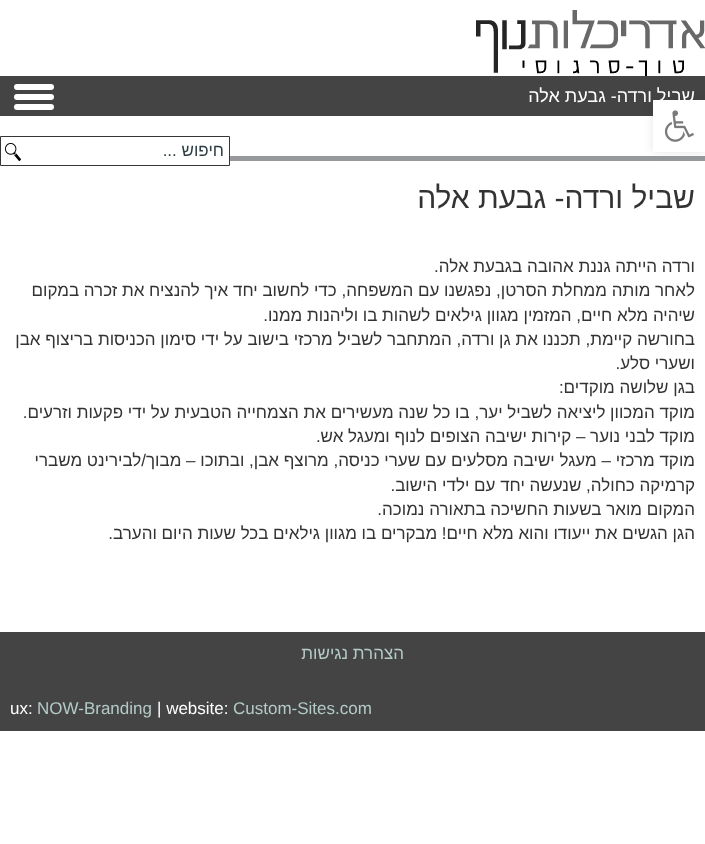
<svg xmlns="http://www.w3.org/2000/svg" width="705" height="844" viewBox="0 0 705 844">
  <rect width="100%" height="100%" fill="#fff"/>
  <path d="M230 156h475v5H230z" fill="#97999c"/>
  <path d="M0 76h705v40H0z" fill="#444"/>
  <path d="M653 100h52v52H653z" fill="#0000001a" filter="blur(5px)"/>
  <path d="M653 100h52v52H653z" fill="#fff"/>
  <image x="664" y="110" width="30" height="32" href="img/1.png"/>
  <image x="476" y="10" width="229" height="66" href="img/2.png"/>
  <rect x="14" y="94" width="40" height="6" rx="3" fill="#fff"/>
  <rect x="14" y="84" width="40" height="6" rx="3" fill="#fff"/>
  <rect x="14" y="104" width="40" height="6" rx="3" fill="#fff"/>
  <path d="M0.5 136.5h229v29H0.5z" fill="none" stroke="#363636"/>
  <image x="5" y="143" width="16" height="18" href="img/3.png"/>
  <path d="M0 632h705v99H0z" fill="#444"/>
  <text x="695" y="102" font-family="Liberation Sans" font-size="18" direction="rtl" fill="#fff">שביל ורדה- גבעת אלה</text>
  <text x="224" y="156" font-family="Liberation Sans" font-size="17" direction="rtl" fill="#2c3e44">חיפוש ...</text>
  <text x="695" y="208" font-family="Liberation Sans" font-size="30" direction="rtl" fill="#333">שביל ורדה- גבעת אלה</text>
  <g font-family="Liberation Sans" font-size="17" direction="rtl" fill="#333">
    <text x="695" y="272">ורדה הייתה גננת אהובה בגבעת אלה.</text>
    <text x="695" y="296">לאחר מותה ממחלת הסרטן, נפגשנו עם המשפחה, כדי לחשוב יחד איך להנציח את זכרה במקום</text>
    <text x="695" y="321">שיהיה מלא חיים, המזמין מגוון גילאים לשהות בו וליהנות ממנו.</text>
    <text x="695" y="345">בחורשה קיימת, תכננו את גן ורדה, המתחבר לשביל מרכזי בישוב על ידי סימון הכניסות בריצוף אבן</text>
    <text x="695" y="369">ושערי סלע.</text>
    <text x="695" y="393">בגן שלושה מוקדים:</text>
    <text x="695" y="418">מוקד המכוון ליציאה לשביל יער, בו כל שנה מעשירים את הצמחייה הטבעית על ידי פקעות וזרעים.</text>
    <text x="695" y="442">מוקד לבני נוער – קירות ישיבה הצופים לנוף ומעגל אש.</text>
    <text x="695" y="466">מוקד מרכזי – מעגל ישיבה מסלעים עם שערי כניסה, מרוצף אבן, ובתוכו – מבוך/לבירינט משברי</text>
    <text x="695" y="491">קרמיקה כחולה, שנעשה יחד עם ילדי הישוב.</text>
    <text x="695" y="515">המקום מואר בשעות החשיכה בתאורה נמוכה.</text>
    <text x="695" y="539">הגן הגשים את ייעודו והוא מלא חיים! מבקרים בו מגוון גילאים בכל שעות היום והערב.</text>
  </g>
  <text x="404" y="659" font-family="Liberation Sans" font-size="17" direction="rtl" fill="#b3cac7">הצהרת נגישות</text>
  <text x="233" y="714" font-family="Liberation Sans" font-size="17" fill="#b3cac7">Custom-Sites.com</text>
  <text x="157" y="714" font-family="Liberation Sans" font-size="17" fill="#fff">| website:</text>
  <text x="37" y="714" font-family="Liberation Sans" font-size="17" fill="#b3cac7">NOW-Branding</text>
  <text x="10" y="714" font-family="Liberation Sans" font-size="17" fill="#fff">ux:</text>
</svg>
